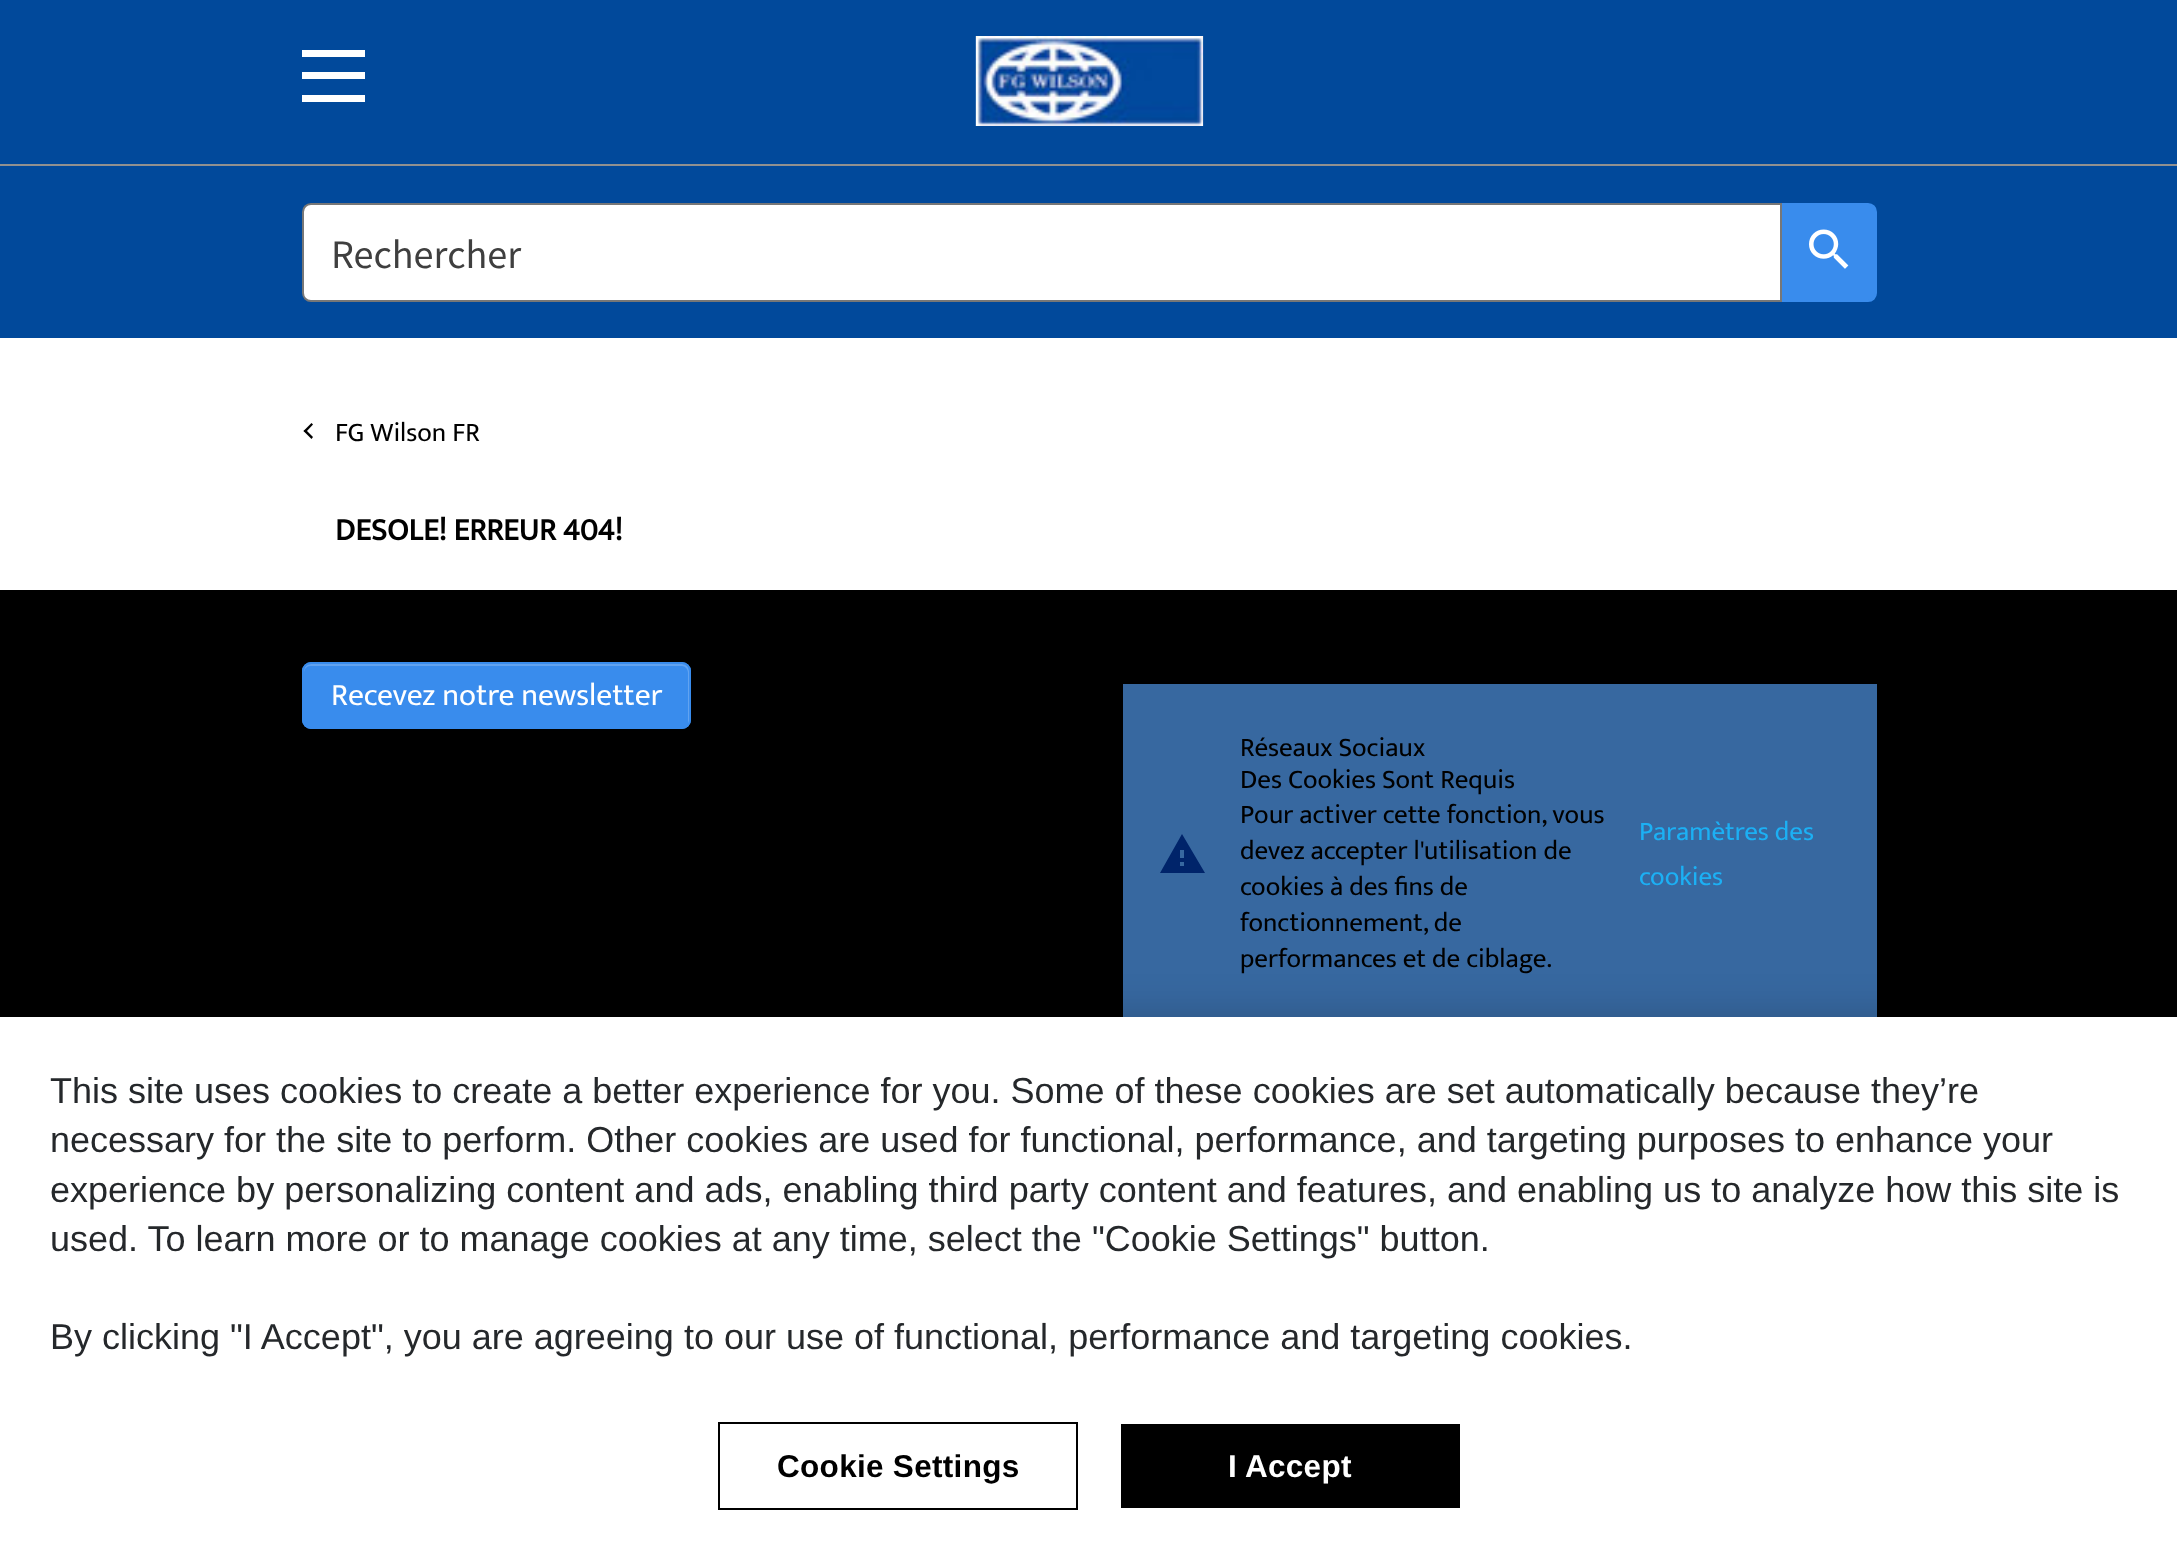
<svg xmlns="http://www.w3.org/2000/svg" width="2177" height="1563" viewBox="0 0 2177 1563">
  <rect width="100%" height="100%" fill="#fff"/>
  <path d="M0 0h2177v338H0z" fill="#01499b"/>
  <path d="M302 72h63v7H302z" fill="#fff"/>
  <path d="M302 50h63v7H302z" fill="#fff"/>
  <path d="M302 95h63v7H302z" fill="#fff"/>
  <image x="975" y="36" width="229" height="90" href="img/1.png"/>
  <path d="M0 164h2177v2H0z" fill="#909090"/>
  <path d="M311 204H1781V301H311C306.5 301 303 297.5 303 293V212C303 207.5 306.5 204 311 204Z" fill="#fff" stroke="#777" stroke-width="2"/>
  <path d="M1783 204H1868C1872.5 204 1876 207.5 1876 212V293C1876 297.5 1872.5 301 1868 301H1783Z" fill="#398ced" stroke="#398ced" stroke-width="2"/>
  <image x="1809" y="229" width="40" height="40" href="img/2.png"/>
  <path d="M313 437L311.5 439L303.5 431L305.5 429.5Z" fill="#000"/>
  <path d="M313 424.5L305.5 432.5L303.5 431L311.5 423Z" fill="#000"/>
  <path d="M0 590h2177v427H0z" fill="#000"/>
  <rect x="302" y="662" width="389" height="67" rx="9" fill="#398ced"/>
  <path d="M310 666H682C685 666 688 669 688 673V724C689 723 689 721 689 720V671C689 667 686 664 682 664H311C307 664 304 667 304 671V673C304 669 307 666 310 666Z" fill="#61a3f1"/>
  <rect x="303" y="663" width="387" height="65" rx="8" fill="none" stroke="#398ced" stroke-width="2"/>
  <path d="M1123 684h754v333H1123z" fill="#3768a0"/>
  <path d="M1184 858V850H1180V858ZM1184 866V862H1180V866ZM1160 873L1182 834L1205 873Z" fill="#00246a"/>
  <path d="M0 1017h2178v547H0z" fill="#00000033" filter="blur(20px)"/>
  <path d="M0 1017h2177v546H0z" fill="#fff"/>
  <path d="M719 1423h358v86H719z" fill="none" stroke="#000" stroke-width="2"/>
  <path d="M1121 1424h339v84H1121z" fill="#000"/>
  <text x="331" y="268" font-family="Noto Sans JP" font-size="36" fill="#3f3f3f">Rechercher</text>
  <text x="335" y="441" font-family="Mukta" font-size="27" fill="#000">FG Wilson FR</text>
  <text x="335" y="540" font-family="Mukta" font-size="31.5" font-weight="bold" fill="#000">DESOLE! ERREUR 404!</text>
  <text x="331" y="705" font-family="Mukta" font-size="31.5" fill="#fff">Recevez notre newsletter</text>
  <g font-family="Mukta" font-size="27" fill="#000">
    <text x="1240" y="756">Réseaux Sociaux</text>
    <text x="1240" y="788">Des Cookies Sont Requis</text>
    <text x="1240" y="823">Pour activer cette fonction, vous</text>
    <text x="1240" y="859">devez accepter l'utilisation de</text>
    <text x="1240" y="895">cookies à des fins de</text>
    <text x="1240" y="931">fonctionnement, de</text>
    <text x="1240" y="967">performances et de ciblage.</text>
  </g>
  <g font-family="Mukta" font-size="27" fill="#1cb0f4">
    <text x="1639" y="840">Paramètres des</text>
    <text x="1639" y="885">cookies</text>
  </g>
  <g font-family="Liberation Sans" font-size="36" fill="#25282b">
    <text x="50" y="1103">This site uses cookies to create a better experience for you. Some of these cookies are set automatically because they’re</text>
    <text x="50" y="1152">necessary for the site to perform. Other cookies are used for functional, performance, and targeting purposes to enhance your</text>
    <text x="50" y="1202">experience by personalizing content and ads, enabling third party content and features, and enabling us to analyze how this site is</text>
    <text x="50" y="1251">used. To learn more or to manage cookies at any time, select the "Cookie Settings" button.</text>
    <text x="50" y="1349">By clicking "I Accept", you are agreeing to our use of functional, performance and targeting cookies.</text>
  </g>
  <text x="777" y="1477" font-family="Liberation Sans" font-size="31.5" font-weight="bold" letter-spacing="0.3" fill="#000">Cookie Settings</text>
  <text x="1228" y="1477" font-family="Liberation Sans" font-size="31.5" font-weight="bold" letter-spacing="0.3" fill="#fff">I Accept</text>
</svg>
